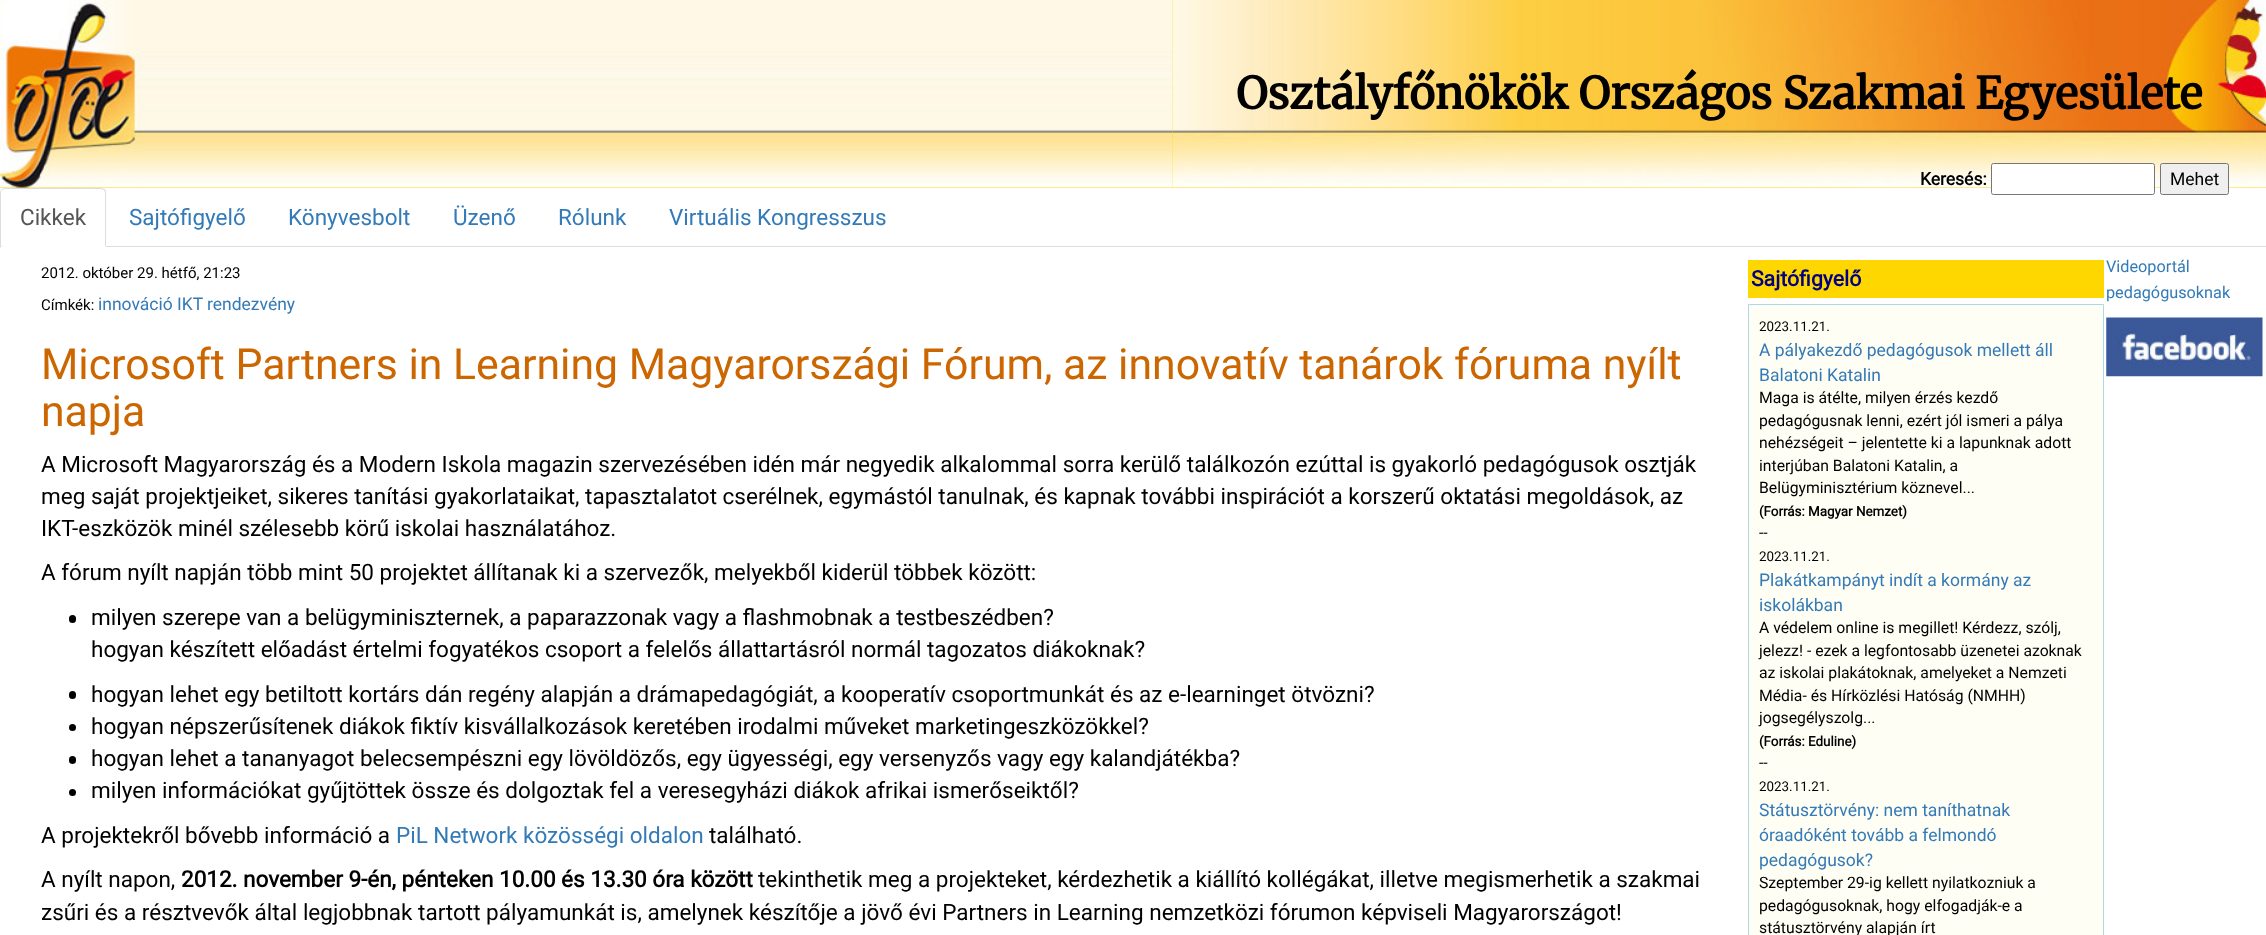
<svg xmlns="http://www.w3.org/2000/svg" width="2266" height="935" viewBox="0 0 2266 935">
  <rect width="100%" height="100%" fill="#fff"/>
  <path d="M0 187h140v1H0z" fill="#ffd700"/>
  <image x="0" y="0" width="140" height="188" href="img/1.png"/>
  <path d="M140 0h1033v188H140z" fill="#ffd700"/>
  <image x="140" y="0" width="1033" height="188" href="img/2.png"/>
  <path d="M1173 187h1093v1H1173z" fill="#ffd700"/>
  <image x="1172" y="0" width="1094" height="188" href="img/3.png"/>
  <rect x="1991.5" y="163.5" width="163" height="31" rx="2" fill="#fff" stroke="#767676"/>
  <rect x="2160.5" y="163.5" width="68" height="31" rx="2" fill="#efefef" stroke="#767676"/>
  <path d="M106 246h2160v1H106z" fill="#ddd"/>
  <path d="M5 188L2 189V190L5 189H101L104 190L105 189L101 188Z" fill="#ddd"/>
  <path d="M106 247V191L105 189L104 190L105 192V246Z" fill="#ddd"/>
  <path d="M0 248L2 246H1V191L2 190V189C1 190 0 191 0 192Z" fill="#ddd"/>
  <rect x="69" y="615" width="7" height="8" rx="3.5" fill="#000"/>
  <rect x="69" y="691" width="7" height="8" rx="3.5" fill="#000"/>
  <circle cx="72.5" cy="727.5" r="3.5" fill="#000"/>
  <rect x="69" y="756" width="7" height="8" rx="3.5" fill="#000"/>
  <circle cx="72.5" cy="792.5" r="3.5" fill="#000"/>
  <path d="M1748 260h356v38H1748z" fill="#ffd700"/>
  <path d="M1748.5 304.5h355v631H1748.5z" fill="#fffef4" stroke="#add8e6"/>
  <image x="2106" y="317" width="157" height="60" href="img/4.png"/>
  <text x="1236" y="109" font-family="Merriweather" font-size="43.75" font-weight="bold" fill="#000">Osztályfőnökök Országos Szakmai Egyesülete</text>
  <text x="1920" y="185" font-family="Roboto" font-size="17.5" font-weight="bold" fill="#000">Keresés:</text>
  <text x="2170" y="185" font-family="Roboto" font-size="17.5" fill="#000">Mehet</text>
  <text x="20" y="225" font-family="Roboto" font-size="22.5" fill="#555">Cikkek</text>
  <g font-family="Roboto" font-size="22.5" fill="#337ab7">
    <text x="129" y="225">Sajtófigyelő</text>
    <text x="288" y="225">Könyvesbolt</text>
    <text x="453" y="225">Üzenő</text>
    <text x="558" y="225">Rólunk</text>
    <text x="669" y="225">Virtuális Kongresszus</text>
  </g>
  <g font-family="Roboto" font-size="15" fill="#000">
    <text x="41" y="278">2012. október 29. hétfő, 21:23</text>
    <text x="41" y="310">Címkék:</text>
  </g>
  <g font-family="Roboto" font-size="17.5" fill="#337ab7">
    <text x="98" y="310">innováció</text>
    <text x="177" y="310">IKT</text>
    <text x="207" y="310">rendezvény</text>
  </g>
  <g font-family="Roboto" font-size="42.75" fill="#c60">
    <text x="41" y="379">Microsoft Partners in Learning Magyarországi Fórum, az innovatív tanárok fóruma nyílt</text>
    <text x="41" y="426">napja</text>
  </g>
  <g font-family="Roboto" font-size="22.5" fill="#000">
    <text x="41" y="472">A Microsoft Magyarország és a Modern Iskola magazin szervezésében idén már negyedik alkalommal sorra kerülő találkozón ezúttal is gyakorló pedagógusok osztják</text>
    <text x="41" y="504">meg saját projektjeiket, sikeres tanítási gyakorlataikat, tapasztalatot cserélnek, egymástól tanulnak, és kapnak további inspirációt a korszerű oktatási megoldások, az</text>
    <text x="41" y="536">IKT-eszközök minél szélesebb körű iskolai használatához.</text>
    <text x="41" y="580">A fórum nyílt napján több mint 50 projektet állítanak ki a szervezők, melyekből kiderül többek között:</text>
    <text x="91" y="625">milyen szerepe van a belügyminiszternek, a paparazzonak vagy a flashmobnak a testbeszédben?</text>
    <text x="91" y="657">hogyan készített előadást értelmi fogyatékos csoport a felelős állattartásról normál tagozatos diákoknak?</text>
    <text x="91" y="702">hogyan lehet egy betiltott kortárs dán regény alapján a drámapedagógiát, a kooperatív csoportmunkát és az e-learninget ötvözni?</text>
    <text x="91" y="734">hogyan népszerűsítenek diákok fiktív kisvállalkozások keretében irodalmi műveket marketingeszközökkel?</text>
    <text x="91" y="766">hogyan lehet a tananyagot belecsempészni egy lövöldözős, egy ügyességi, egy versenyzős vagy egy kalandjátékba?</text>
    <text x="91" y="798">milyen információkat gyűjtöttek össze és dolgoztak fel a veresegyházi diákok afrikai ismerőseiktől?</text>
    <text x="41" y="843">A projektekről bővebb információ a</text>
  </g>
  <text x="396" y="843" font-family="Roboto" font-size="22.5" fill="#337ab7">PiL Network közösségi oldalon</text>
  <g font-family="Roboto" font-size="22.5" fill="#000">
    <text x="709" y="843">található.</text>
    <text x="41" y="887">A nyílt napon,</text>
  </g>
  <text x="181" y="887" font-family="Roboto" font-size="22.5" font-weight="bold" fill="#000">2012. november 9-én, pénteken 10.00 és 13.30 óra között</text>
  <g font-family="Roboto" font-size="22.5" fill="#000">
    <text x="758" y="887">tekinthetik meg a projekteket, kérdezhetik a kiállító kollégákat, illetve megismerhetik a szakmai</text>
    <text x="41" y="920">zsűri és a résztvevők által legjobbnak tartott pályamunkát is, amelynek készítője a jövő évi Partners in Learning nemzetközi fórumon képviseli Magyarországot!</text>
  </g>
  <text x="1751" y="286" font-family="Roboto" font-size="21.25" font-weight="bold" fill="#000080">Sajtófigyelő</text>
  <text x="1759" y="331" font-family="Roboto" font-size="13.4" fill="#000">2023.11.21.</text>
  <g font-family="Roboto" font-size="17.5" fill="#337ab7">
    <text x="1759" y="356">A pályakezdő pedagógusok mellett áll</text>
    <text x="1759" y="381">Balatoni Katalin</text>
  </g>
  <g font-family="Roboto" font-size="15.75" fill="#000">
    <text x="1759" y="403">Maga is átélte, milyen érzés kezdő</text>
    <text x="1759" y="426">pedagógusnak lenni, ezért jól ismeri a pálya</text>
    <text x="1759" y="448">nehézségeit – jelentette ki a lapunknak adott</text>
    <text x="1759" y="471">interjúban Balatoni Katalin, a</text>
    <text x="1759" y="493">Belügyminisztérium köznevel...</text>
  </g>
  <text x="1759" y="516" font-family="Roboto" font-size="13.4" font-weight="bold" fill="#000">(Forrás: Magyar Nemzet)</text>
  <text x="1759" y="538" font-family="Roboto" font-size="15.75" fill="#000">--</text>
  <text x="1759" y="561" font-family="Roboto" font-size="13.4" fill="#000">2023.11.21.</text>
  <g font-family="Roboto" font-size="17.5" fill="#337ab7">
    <text x="1759" y="586">Plakátkampányt indít a kormány az</text>
    <text x="1759" y="611">iskolákban</text>
  </g>
  <g font-family="Roboto" font-size="15.75" fill="#000">
    <text x="1759" y="633">A védelem online is megillet! Kérdezz, szólj,</text>
    <text x="1759" y="656">jelezz! - ezek a legfontosabb üzenetei azoknak</text>
    <text x="1759" y="678">az iskolai plakátoknak, amelyeket a Nemzeti</text>
    <text x="1759" y="701">Média- és Hírközlési Hatóság (NMHH)</text>
    <text x="1759" y="723">jogsegélyszolg...</text>
  </g>
  <text x="1759" y="746" font-family="Roboto" font-size="13.4" font-weight="bold" fill="#000">(Forrás: Eduline)</text>
  <text x="1759" y="768" font-family="Roboto" font-size="15.75" fill="#000">--</text>
  <text x="1759" y="791" font-family="Roboto" font-size="13.4" fill="#000">2023.11.21.</text>
  <g font-family="Roboto" font-size="17.5" fill="#337ab7">
    <text x="1759" y="816">Státusztörvény: nem taníthatnak</text>
    <text x="1759" y="841">óraadóként tovább a felmondó</text>
    <text x="1759" y="866">pedagógusok?</text>
  </g>
  <g font-family="Roboto" font-size="15.75" fill="#000">
    <text x="1759" y="888">Szeptember 29-ig kellett nyilatkozniuk a</text>
    <text x="1759" y="911">pedagógusoknak, hogy elfogadják-e a</text>
    <text x="1759" y="933">státusztörvény alapján írt</text>
  </g>
  <g font-family="Roboto" font-size="16.25" fill="#337ab7">
    <text x="2106" y="272">Videoportál</text>
    <text x="2106" y="298">pedagógusoknak</text>
  </g>
</svg>
